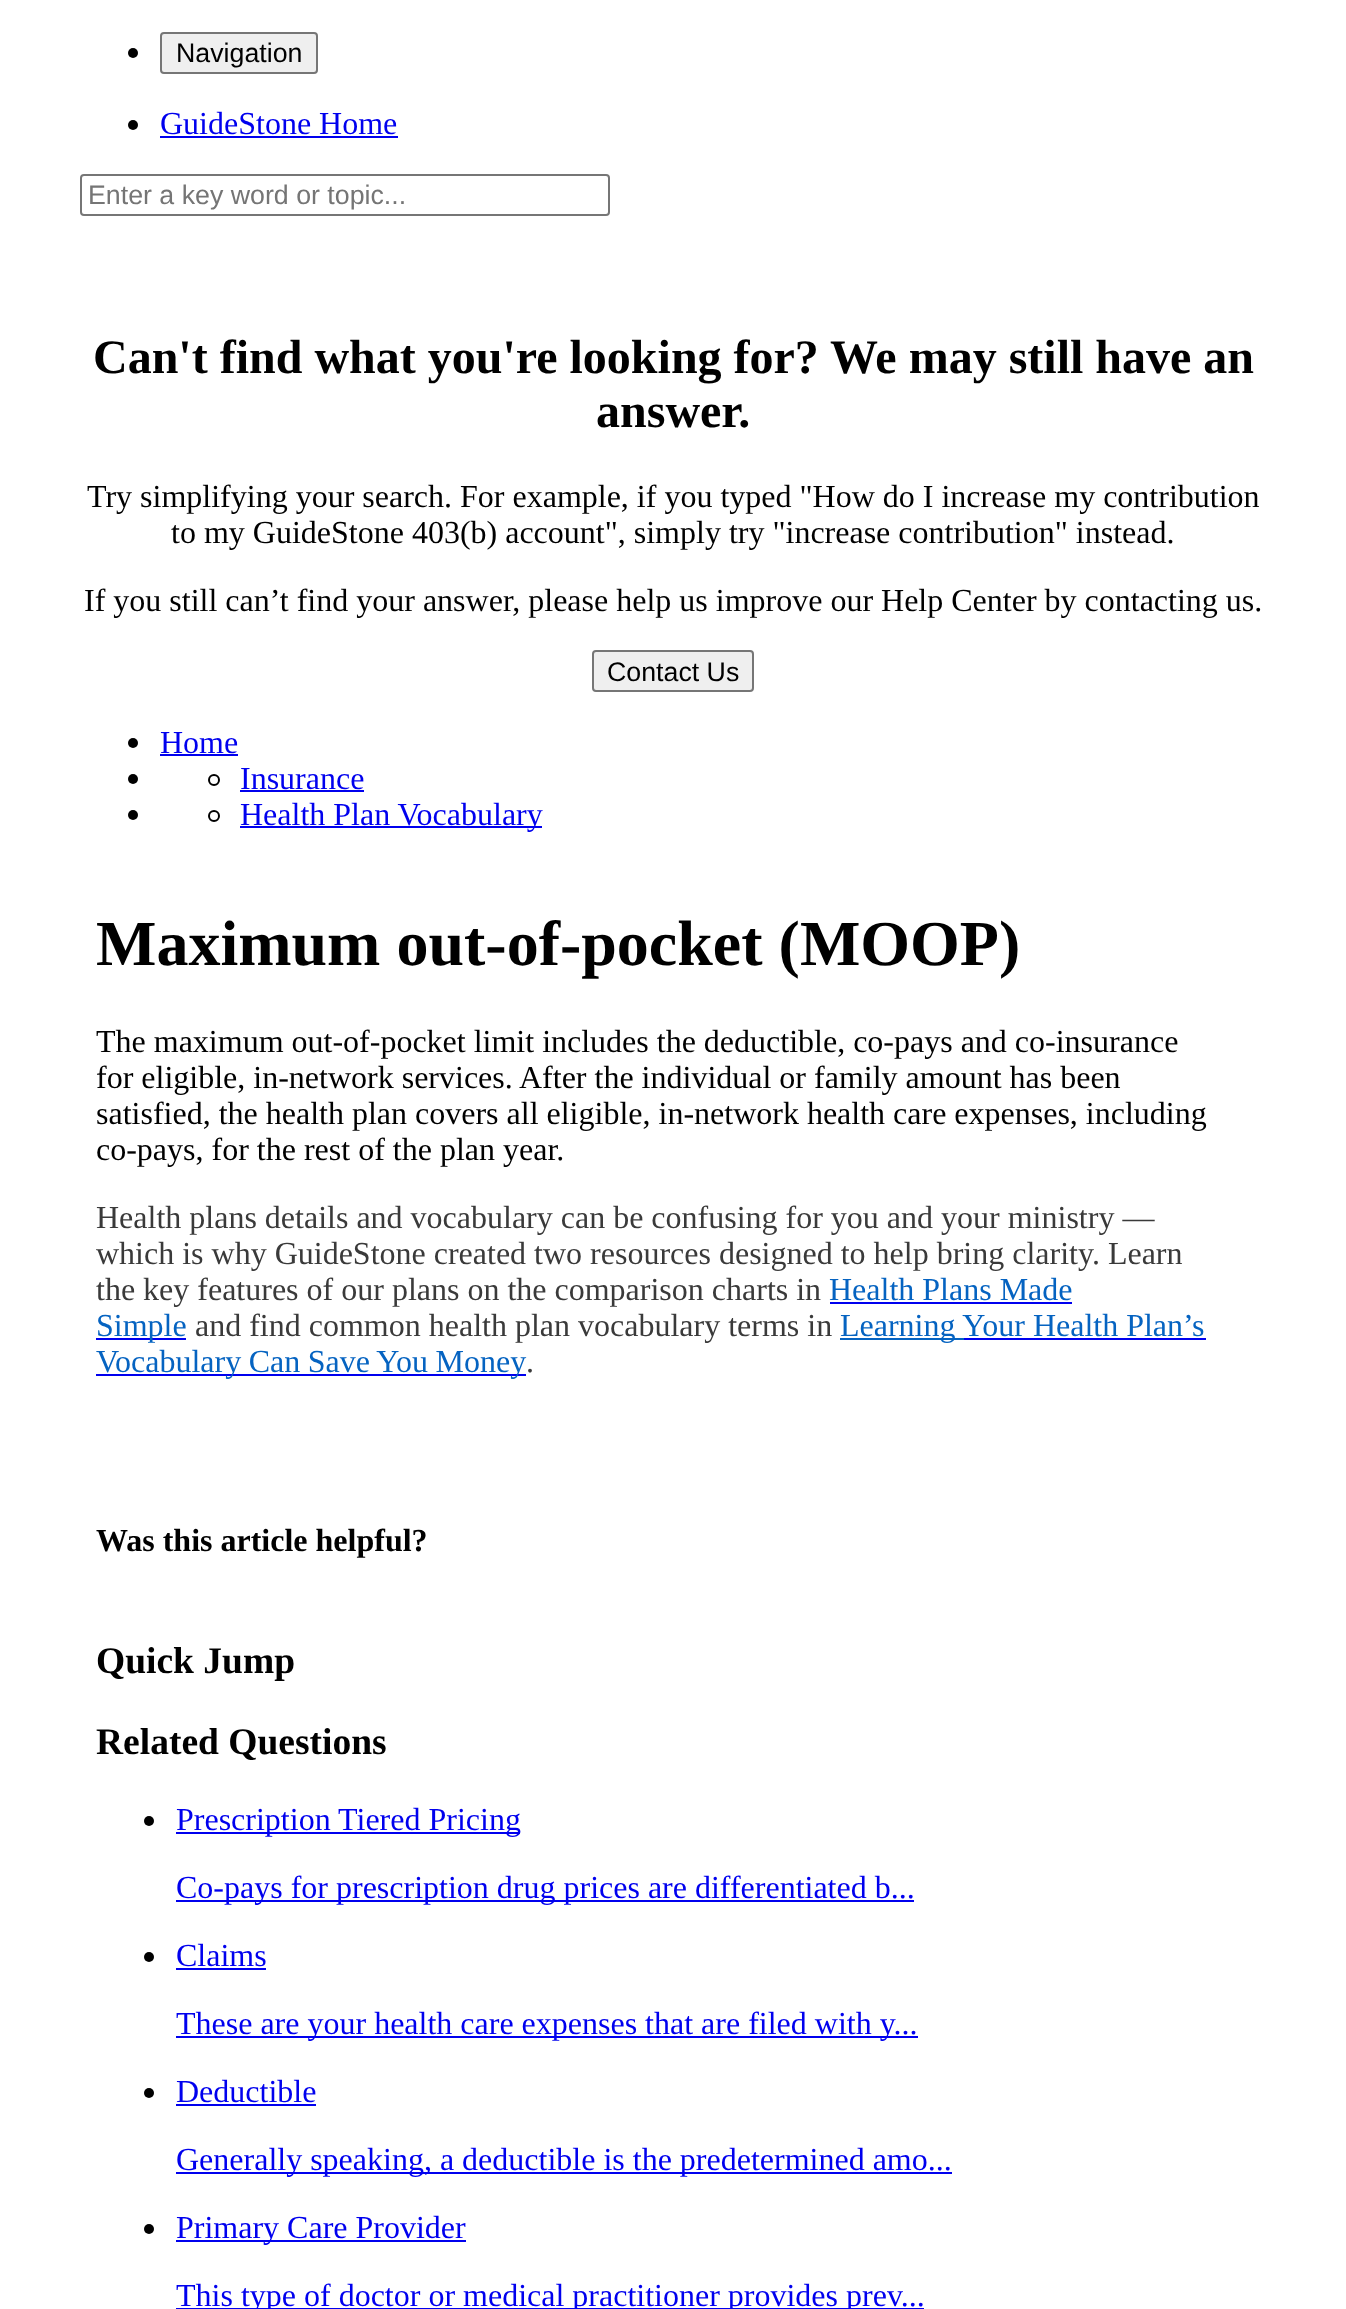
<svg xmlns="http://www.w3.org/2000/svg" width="1346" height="2309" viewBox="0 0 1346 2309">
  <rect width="100%" height="100%" fill="#fff"/>
  <circle cx="133" cy="53" r="5" fill="#000"/>
  <rect x="161" y="33" width="156" height="40" rx="3" fill="#efefef" stroke="#767676" stroke-width="2"/>
  <circle cx="133" cy="125" r="5" fill="#000"/>
  <path d="M160 136h238v2H160z" fill="#00e"/>
  <rect x="81" y="175" width="528" height="40" rx="3" fill="none" stroke="#767676" stroke-width="2"/>
  <rect x="593" y="651" width="160" height="40" rx="3" fill="#efefef" stroke="#767676" stroke-width="2"/>
  <circle cx="133" cy="743" r="5" fill="#000"/>
  <path d="M160 754h78v2H160z" fill="#00e"/>
  <circle cx="133" cy="779" r="5" fill="#000"/>
  <circle cx="214" cy="780" r="5" fill="none" stroke="#000" stroke-width="2"/>
  <path d="M240 790h124v2H240z" fill="#00e"/>
  <circle cx="133" cy="815" r="5" fill="#000"/>
  <circle cx="214" cy="816" r="5" fill="none" stroke="#000" stroke-width="2"/>
  <path d="M240 826h302v2H240z" fill="#00e"/>
  <path d="M830 1302h242v2H830z" fill="#00e"/>
  <path d="M96 1338h90v2H96z" fill="#00e"/>
  <path d="M840 1338h124v2H840z" fill="#0563c1"/>
  <path d="M96 1374h430v2H96z" fill="#00e"/>
  <circle cx="149" cy="1821" r="5" fill="#000"/>
  <path d="M176 1832h344v2H176z" fill="#00e"/>
  <path d="M176 1900h738v2H176z" fill="#00e"/>
  <circle cx="149" cy="1957" r="5" fill="#000"/>
  <path d="M176 1968h90v2H176z" fill="#00e"/>
  <path d="M176 2036h742v2H176z" fill="#00e"/>
  <circle cx="149" cy="2093" r="5" fill="#000"/>
  <path d="M176 2104h140v2H176z" fill="#00e"/>
  <path d="M176 2172h776v2H176z" fill="#00e"/>
  <circle cx="149" cy="2229" r="5" fill="#000"/>
  <path d="M176 2240h290v2H176z" fill="#00e"/>
  <path d="M176 2308h748v1H176z" fill="#00e"/>
  <text x="176" y="62" font-family="Liberation Sans" font-size="26.75" fill="#000">Navigation</text>
  <text x="160" y="134" font-family="Liberation Serif" font-size="32" fill="#00e">GuideStone Home</text>
  <text x="88" y="204" font-family="Liberation Sans" font-size="26.75" fill="#757575">Enter a key word or topic...</text>
  <g font-family="Liberation Serif" font-size="48" font-weight="bold" fill="#000">
    <text x="93" y="373">Can't find what you're looking for? We may still have an</text>
    <text x="596" y="427">answer.</text>
  </g>
  <g font-family="Liberation Serif" font-size="32" fill="#000">
    <text x="87" y="507">Try simplifying your search. For example, if you typed "How do I increase my contribution</text>
    <text x="171" y="543">to my GuideStone 403(b) account", simply try "increase contribution" instead.</text>
    <text x="84" y="611">If you still can’t find your answer, please help us improve our Help Center by contacting us.</text>
  </g>
  <text x="607" y="681" font-family="Liberation Sans" font-size="26.75" fill="#000">Contact Us</text>
  <g font-family="Liberation Serif" font-size="32" fill="#00e">
    <text x="160" y="753">Home</text>
    <text x="240" y="789">Insurance</text>
    <text x="240" y="825">Health Plan Vocabulary</text>
  </g>
  <text x="96" y="965" font-family="Liberation Serif" font-size="64" font-weight="bold" fill="#000">Maximum out-of-pocket (MOOP)</text>
  <g font-family="Liberation Serif" font-size="32" fill="#000">
    <text x="96" y="1052">The maximum out-of-pocket limit includes the deductible, co-pays and co-insurance</text>
    <text x="96" y="1088">for eligible, in-network services. After the individual or family amount has been</text>
    <text x="96" y="1124">satisfied, the health plan covers all eligible, in-network health care expenses, including</text>
    <text x="96" y="1160">co-pays, for the rest of the plan year.</text>
  </g>
  <g font-family="Liberation Serif" font-size="32" fill="#3a3a3a">
    <text x="96" y="1228">Health plans details and vocabulary can be confusing for you and your ministry —</text>
    <text x="96" y="1264">which is why GuideStone created two resources designed to help bring clarity. Learn</text>
    <text x="96" y="1300">the key features of our plans on the comparison charts in</text>
  </g>
  <g font-family="Liberation Serif" font-size="32" fill="#0563c1">
    <text x="829" y="1300">Health Plans Made</text>
    <text x="96" y="1336">Simple</text>
  </g>
  <text x="195" y="1336" font-family="Liberation Serif" font-size="32" fill="#3a3a3a">and find common health plan vocabulary terms in</text>
  <g font-family="Liberation Serif" font-size="32" fill="#0563c1">
    <text x="840" y="1336">Learning Your Health Plan’s</text>
    <text x="96" y="1372" word-spacing="-0.5">Vocabulary Can Save You Money</text>
  </g>
  <path d="M964 1338h242v2H964z" fill="#00e"/>
  <text x="526" y="1372" font-family="Liberation Serif" font-size="32" fill="#3a3a3a">.</text>
  <text x="96" y="1551" font-family="Liberation Serif" font-size="32" font-weight="bold" fill="#000">Was this article helpful?</text>
  <g font-family="Liberation Serif" font-size="37.5" font-weight="bold" fill="#000">
    <text x="96" y="1673">Quick Jump</text>
    <text x="96" y="1754">Related Questions</text>
  </g>
  <g font-family="Liberation Serif" font-size="32" fill="#00e">
    <text x="176" y="1830">Prescription Tiered Pricing</text>
    <text x="176" y="1898">Co-pays for prescription drug prices are differentiated b...</text>
    <text x="176" y="1966">Claims</text>
    <text x="176" y="2034">These are your health care expenses that are filed with y...</text>
    <text x="176" y="2102">Deductible</text>
    <text x="176" y="2170">Generally speaking, a deductible is the predetermined amo...</text>
    <text x="176" y="2238">Primary Care Provider</text>
    <text x="176" y="2306">This type of doctor or medical practitioner provides prev...</text>
  </g>
</svg>
